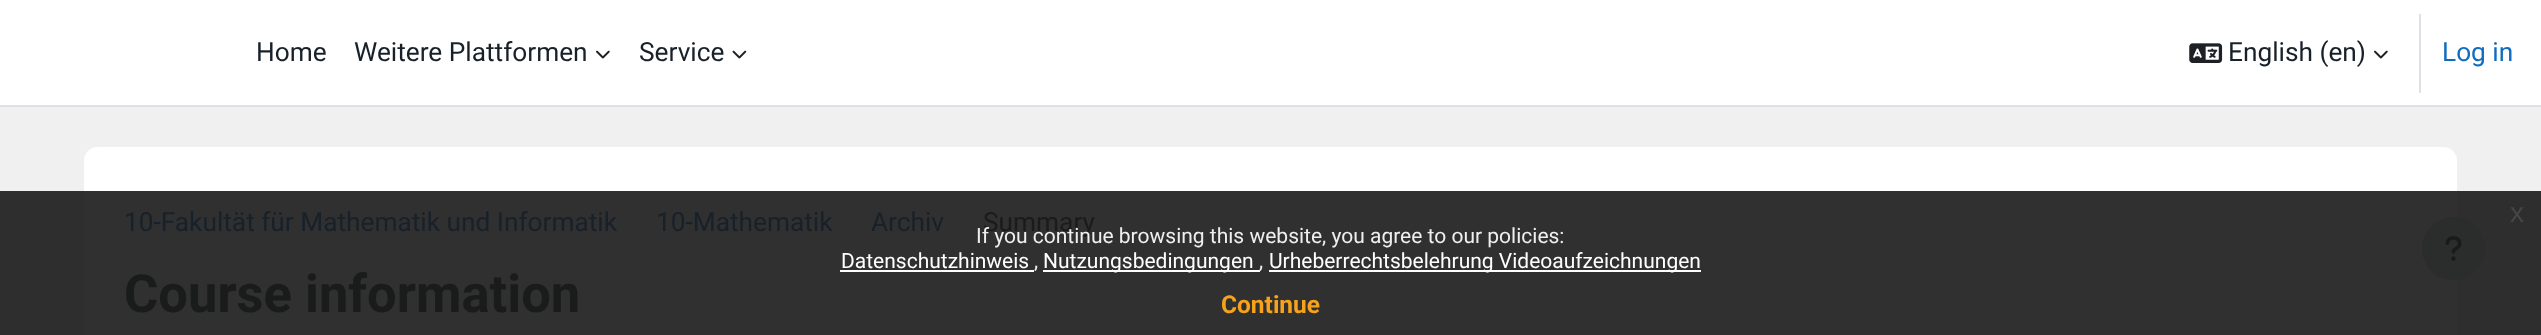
<svg xmlns="http://www.w3.org/2000/svg" width="2541" height="335" viewBox="0 0 2541 335">
  <rect width="100%" height="100%" fill="#f0f0f0"/>
  <path d="M0 191h2541v144H0z" fill="#2e2e2e"/>
  <path d="M0 0h2541v105H0z" fill="#fff"/>
  <path d="M0 105h2541v2H0z" fill="#dee2e6"/>
  <image x="596" y="50" width="14" height="9" href="img/1.png"/>
  <image x="732" y="50" width="15" height="9" href="img/2.png"/>
  <image x="2189" y="43" width="34" height="20" href="img/3.png"/>
  <image x="2374" y="50" width="14" height="9" href="img/1.png"/>
  <path d="M2419 14h2v79H2419z" fill="#dee2e6"/>
  <rect x="84" y="147" width="2373" height="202" rx="14" fill="#fff"/>
  <path d="M84 191h2373v144H84z" fill="#303030"/>
  <circle cx="2453.5" cy="248.5" r="31.5" fill="#2b2c2c"/>
  <image x="2445" y="236" width="17" height="25" href="img/4.png"/>
  <path d="M840 270h194v2H840z" fill="#fff"/>
  <path d="M1043 270h217v2H1043z" fill="#fff"/>
  <path d="M1269 270h432v2H1269z" fill="#fff"/>
  <g font-family="Roboto" font-size="26.25" fill="#18212a">
    <text x="256" y="61">Home</text>
    <text x="354" y="61">Weitere Plattformen</text>
    <text x="639" y="61">Service</text>
    <text x="2228" y="61">English (en)</text>
  </g>
  <text x="2442" y="61" font-family="Roboto" font-size="26.25" fill="#0f6cbf">Log in</text>
  <g font-family="Roboto" font-size="26.25" fill="#18212a">
    <text x="124" y="231">10-Fakultät für Mathematik und Informatik</text>
    <text x="656" y="231">10-Mathematik</text>
    <text x="871" y="231">Archiv</text>
  </g>
  <text x="983" y="231" font-family="Roboto" font-size="26.25" fill="#1a1b1b">Summary</text>
  <text x="124" y="312" font-family="Roboto" font-size="52.5" font-weight="bold" fill="#1a1b1b">Course information</text>
  <text x="2510" y="222" font-family="Liberation Sans" font-size="28" fill="#464646">x</text>
  <text x="976" y="243" font-family="Roboto" font-size="21" fill="#efefef">If you continue browsing this website, you agree to our policies:</text>
  <text x="841" y="268" font-family="Roboto" font-size="21" fill="#fff">Datenschutzhinweis</text>
  <text x="1034" y="268" font-family="Roboto" font-size="21" fill="#efefef">,</text>
  <text x="1043" y="268" font-family="Roboto" font-size="21" fill="#fff">Nutzungsbedingungen</text>
  <text x="1259" y="268" font-family="Roboto" font-size="21" fill="#efefef">,</text>
  <text x="1269" y="268" font-family="Roboto" font-size="21" fill="#fff">Urheberrechtsbelehrung Videoaufzeichnungen</text>
  <text x="1221" y="313" font-family="Roboto" font-size="24.5" font-weight="bold" fill="#f6a21d">Continue</text>
</svg>
